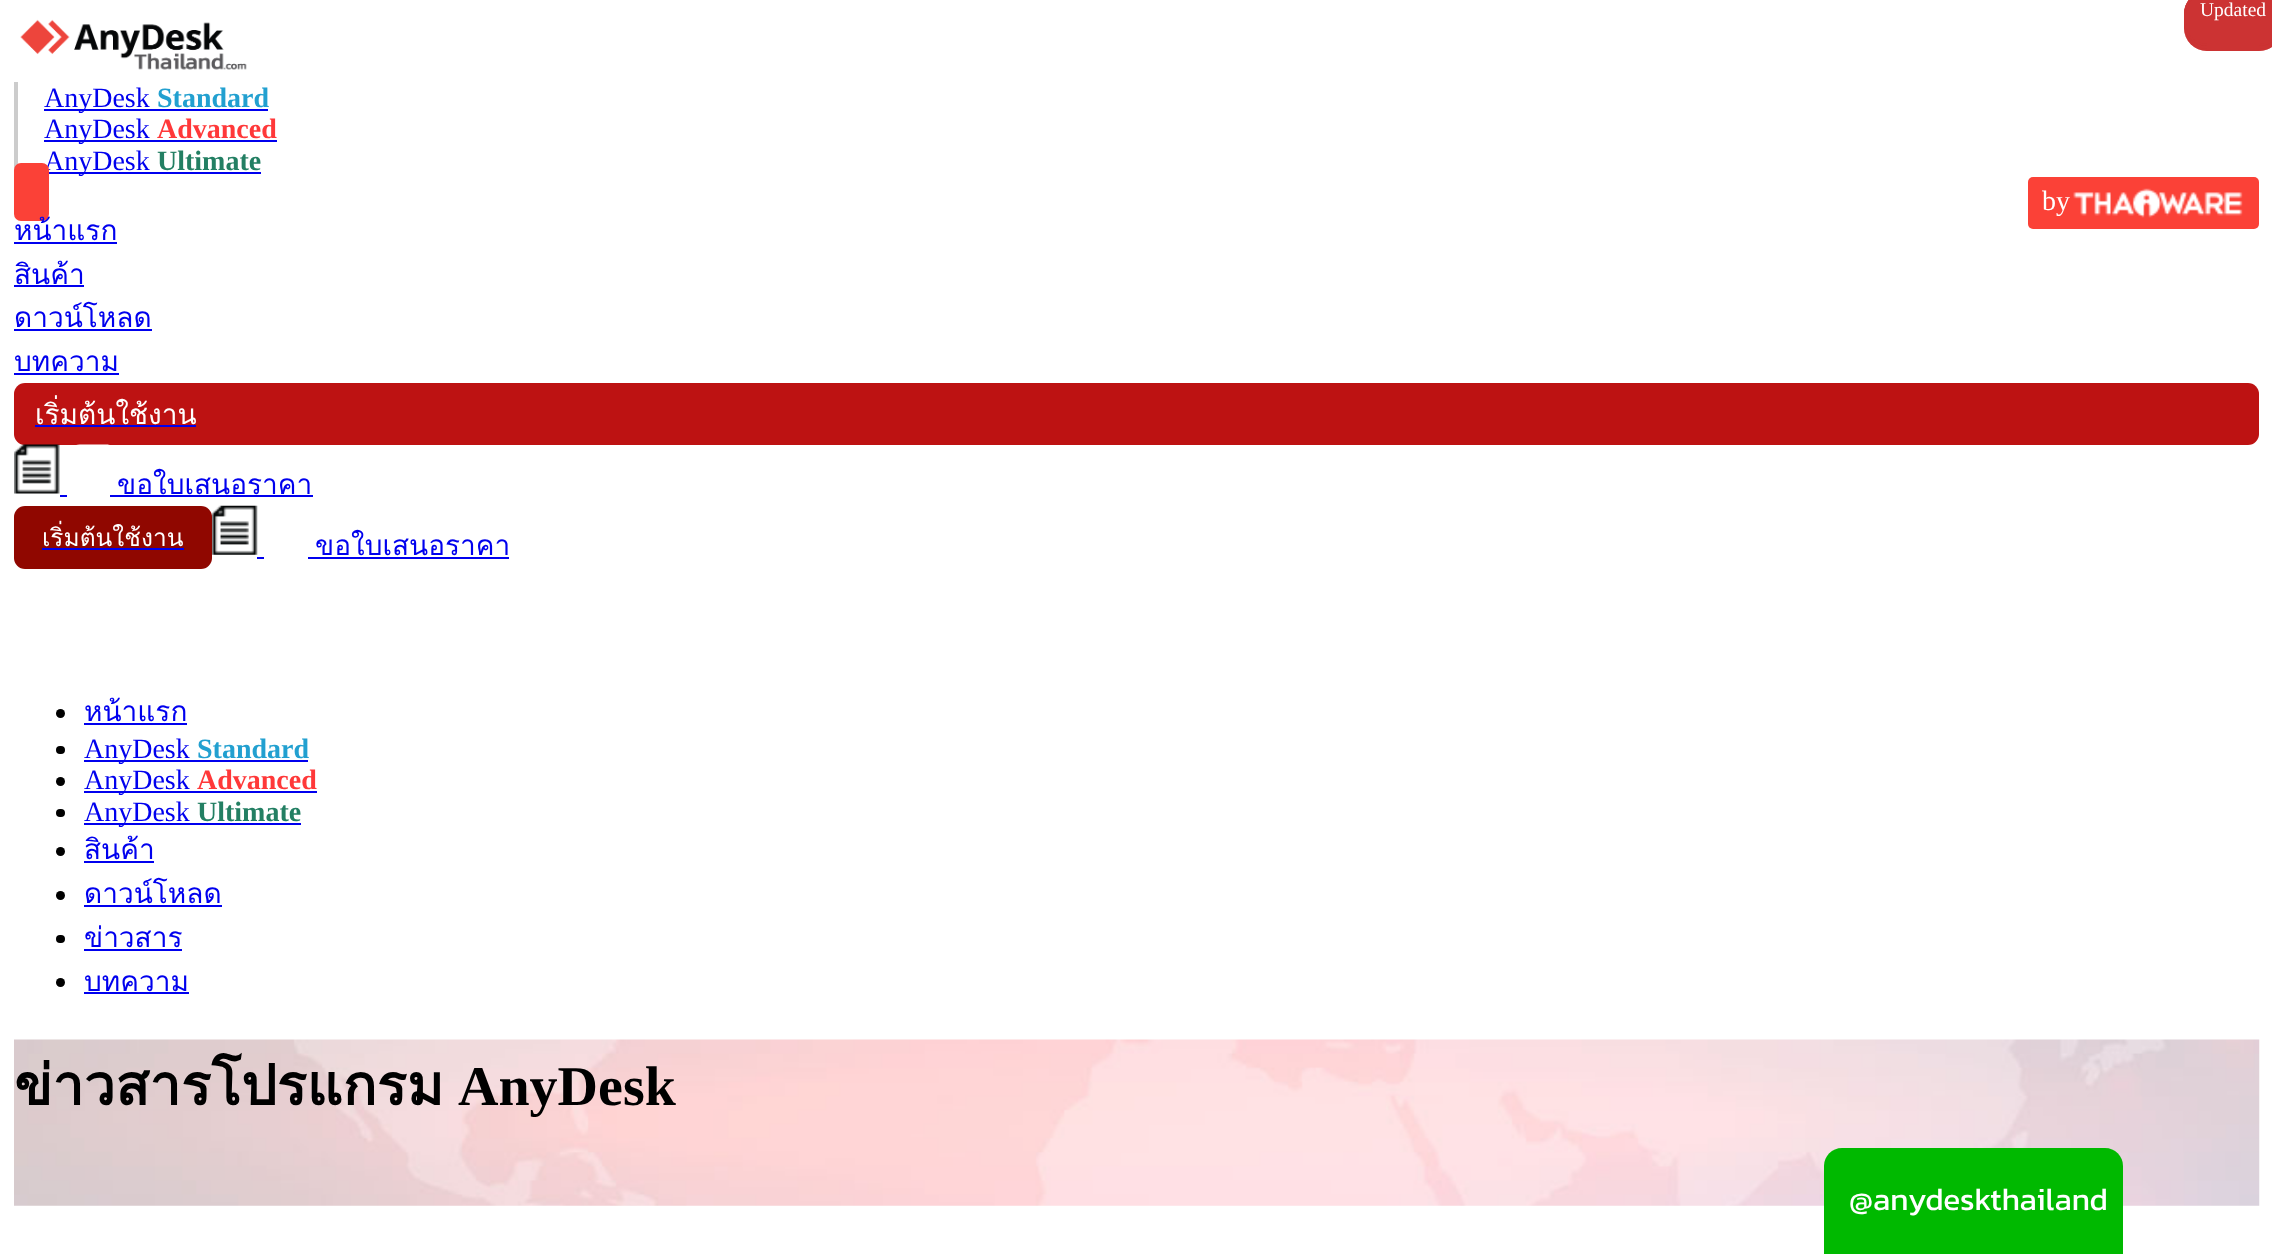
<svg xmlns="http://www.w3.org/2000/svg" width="2272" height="1254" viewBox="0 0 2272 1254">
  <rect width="100%" height="100%" fill="#fff"/>
  <rect x="2184" y="-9" width="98" height="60" rx="23" fill="#c33"/>
  <rect x="2185" y="-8" width="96" height="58" rx="22" fill="none" stroke="#cc333380" stroke-width="2"/>
  <rect x="2184" y="-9" width="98" height="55" rx="23" fill="#c33"/>
  <rect x="2185" y="-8" width="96" height="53" rx="22" fill="none" stroke="#cc333380" stroke-width="2"/>
  <image x="14" y="1039" width="2246" height="167" href="img/6.png"/>
  <path d="M1842 1148H2105C2115 1148 2123 1156 2123 1166V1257H1824V1166C1824 1156 1832 1148 1842 1148Z" fill="#00b900"/>
  <image x="20" y="19" width="227" height="51" href="img/1.png"/>
  <path d="M14 82h4v95H14z" fill="#ccc"/>
  <path d="M44 109h224v2H44z" fill="#00e"/>
  <path d="M44 140h233v2H44z" fill="#00e"/>
  <path d="M44 172h217v2H44z" fill="#00e"/>
  <rect x="2028" y="177" width="231" height="52" rx="5" fill="#fb4137"/>
  <image x="2073" y="188" width="170" height="30" href="img/2.png"/>
  <path d="M14 242h103v2H14z" fill="#00e"/>
  <path d="M14 285h70v2H14z" fill="#00e"/>
  <path d="M14 329h138v2H14z" fill="#00e"/>
  <path d="M14 373h105v2H14z" fill="#00e"/>
  <rect x="14" y="383" width="2245" height="62" rx="11" fill="#bd1212"/>
  <path d="M35 425h161v2H35z" fill="#00e"/>
  <image x="14" y="444" width="46" height="50" href="img/3.png"/>
  <image x="76" y="444" width="34" height="1" href="img/4.png"/>
  <path d="M110 495h203v2H110z" fill="#00e"/>
  <path d="M60 495h7v2H60z" fill="#00e"/>
  <image x="211" y="505" width="47" height="50" href="img/5.png"/>
  <rect x="14" y="506" width="198" height="63" rx="11" fill="#900700"/>
  <path d="M42 548h142v2H42z" fill="#00e"/>
  <path d="M308 557h201v2H308z" fill="#00e"/>
  <path d="M257 557h7v2H257z" fill="#00e"/>
  <circle cx="60.5" cy="713.5" r="4.5" fill="#000"/>
  <path d="M84 723h103v2H84z" fill="#00e"/>
  <rect x="56" y="746" width="9" height="8" rx="4" fill="#000"/>
  <path d="M84 760h224v2H84z" fill="#00e"/>
  <circle cx="60.5" cy="781.5" r="4.5" fill="#000"/>
  <path d="M84 791h233v2H84z" fill="#00e"/>
  <rect x="56" y="809" width="9" height="8" rx="4" fill="#000"/>
  <path d="M84 823h217v2H84z" fill="#00e"/>
  <circle cx="60.5" cy="851.5" r="4.5" fill="#000"/>
  <path d="M84 861h70v2H84z" fill="#00e"/>
  <circle cx="60.5" cy="895.5" r="4.5" fill="#000"/>
  <path d="M84 905h138v2H84z" fill="#00e"/>
  <rect x="56" y="935" width="9" height="8" rx="4" fill="#000"/>
  <path d="M84 949h98v2H84z" fill="#00e"/>
  <circle cx="60.5" cy="982.5" r="4.5" fill="#000"/>
  <path d="M84 992h105v2H84z" fill="#00e"/>
  <text x="2200" y="16" font-family="Liberation Serif" font-size="19.5" fill="#fff">Updated</text>
  <text x="1849" y="1210" font-family="Kanit" font-size="31.5" fill="#fff">@anydeskthailand</text>
  <text x="44" y="107" font-family="Liberation Serif" font-size="28" fill="#00e">AnyDesk</text>
  <text x="157" y="107" font-family="Liberation Serif" font-size="28" font-weight="bold" fill="#22a0d0">Standard</text>
  <text x="44" y="138" font-family="Liberation Serif" font-size="28" fill="#00e">AnyDesk</text>
  <text x="157" y="138" font-family="Liberation Serif" font-size="28" font-weight="bold" fill="#ff3839">Advanced</text>
  <text x="44" y="170" font-family="Liberation Serif" font-size="28" fill="#00e">AnyDesk</text>
  <text x="157" y="170" font-family="Liberation Serif" font-size="28" font-weight="bold" fill="#237f63">Ultimate</text>
  <rect x="14" y="163" width="35" height="58" rx="7" fill="#fb4137"/>
  <text x="2042" y="210" font-family="Liberation Serif" font-size="28" fill="#fff">by</text>
  <g font-family="Loma" font-size="28" fill="#00e">
    <text x="14" y="240">หน้าแรก</text>
    <text x="14" y="284">สินค้า</text>
    <text x="14" y="327">ดาวน์โหลด</text>
    <text x="14" y="371">บทความ</text>
  </g>
  <text x="35" y="424" font-family="Loma" font-size="28" fill="#fff">เริ่มต้นใช้งาน</text>
  <text x="117" y="494" font-family="Loma" font-size="28" fill="#00e">ขอใบเสนอราคา</text>
  <text x="42" y="546" font-family="Loma" font-size="24.5" fill="#fff">เริ่มต้นใช้งาน</text>
  <g font-family="Loma" font-size="28" fill="#00e">
    <text x="315" y="555">ขอใบเสนอราคา</text>
    <text x="84" y="721">หน้าแรก</text>
  </g>
  <text x="84" y="758" font-family="Liberation Serif" font-size="28" fill="#00e">AnyDesk</text>
  <text x="197" y="758" font-family="Liberation Serif" font-size="28" font-weight="bold" fill="#22a0d0">Standard</text>
  <text x="84" y="789" font-family="Liberation Serif" font-size="28" fill="#00e">AnyDesk</text>
  <text x="197" y="789" font-family="Liberation Serif" font-size="28" font-weight="bold" fill="#ff3839">Advanced</text>
  <text x="84" y="821" font-family="Liberation Serif" font-size="28" fill="#00e">AnyDesk</text>
  <text x="197" y="821" font-family="Liberation Serif" font-size="28" font-weight="bold" fill="#237f63">Ultimate</text>
  <g font-family="Loma" font-size="28" fill="#00e">
    <text x="84" y="859">สินค้า</text>
    <text x="84" y="903">ดาวน์โหลด</text>
    <text x="84" y="947">ข่าวสาร</text>
    <text x="84" y="991">บทความ</text>
  </g>
  <text x="14" y="1105" font-family="Loma" font-size="56" font-weight="bold" fill="#000">ข่าวสารโปรแกรม</text>
  <text x="458" y="1105" font-family="Liberation Serif" font-size="56" font-weight="bold" fill="#000">AnyDesk</text>
</svg>
